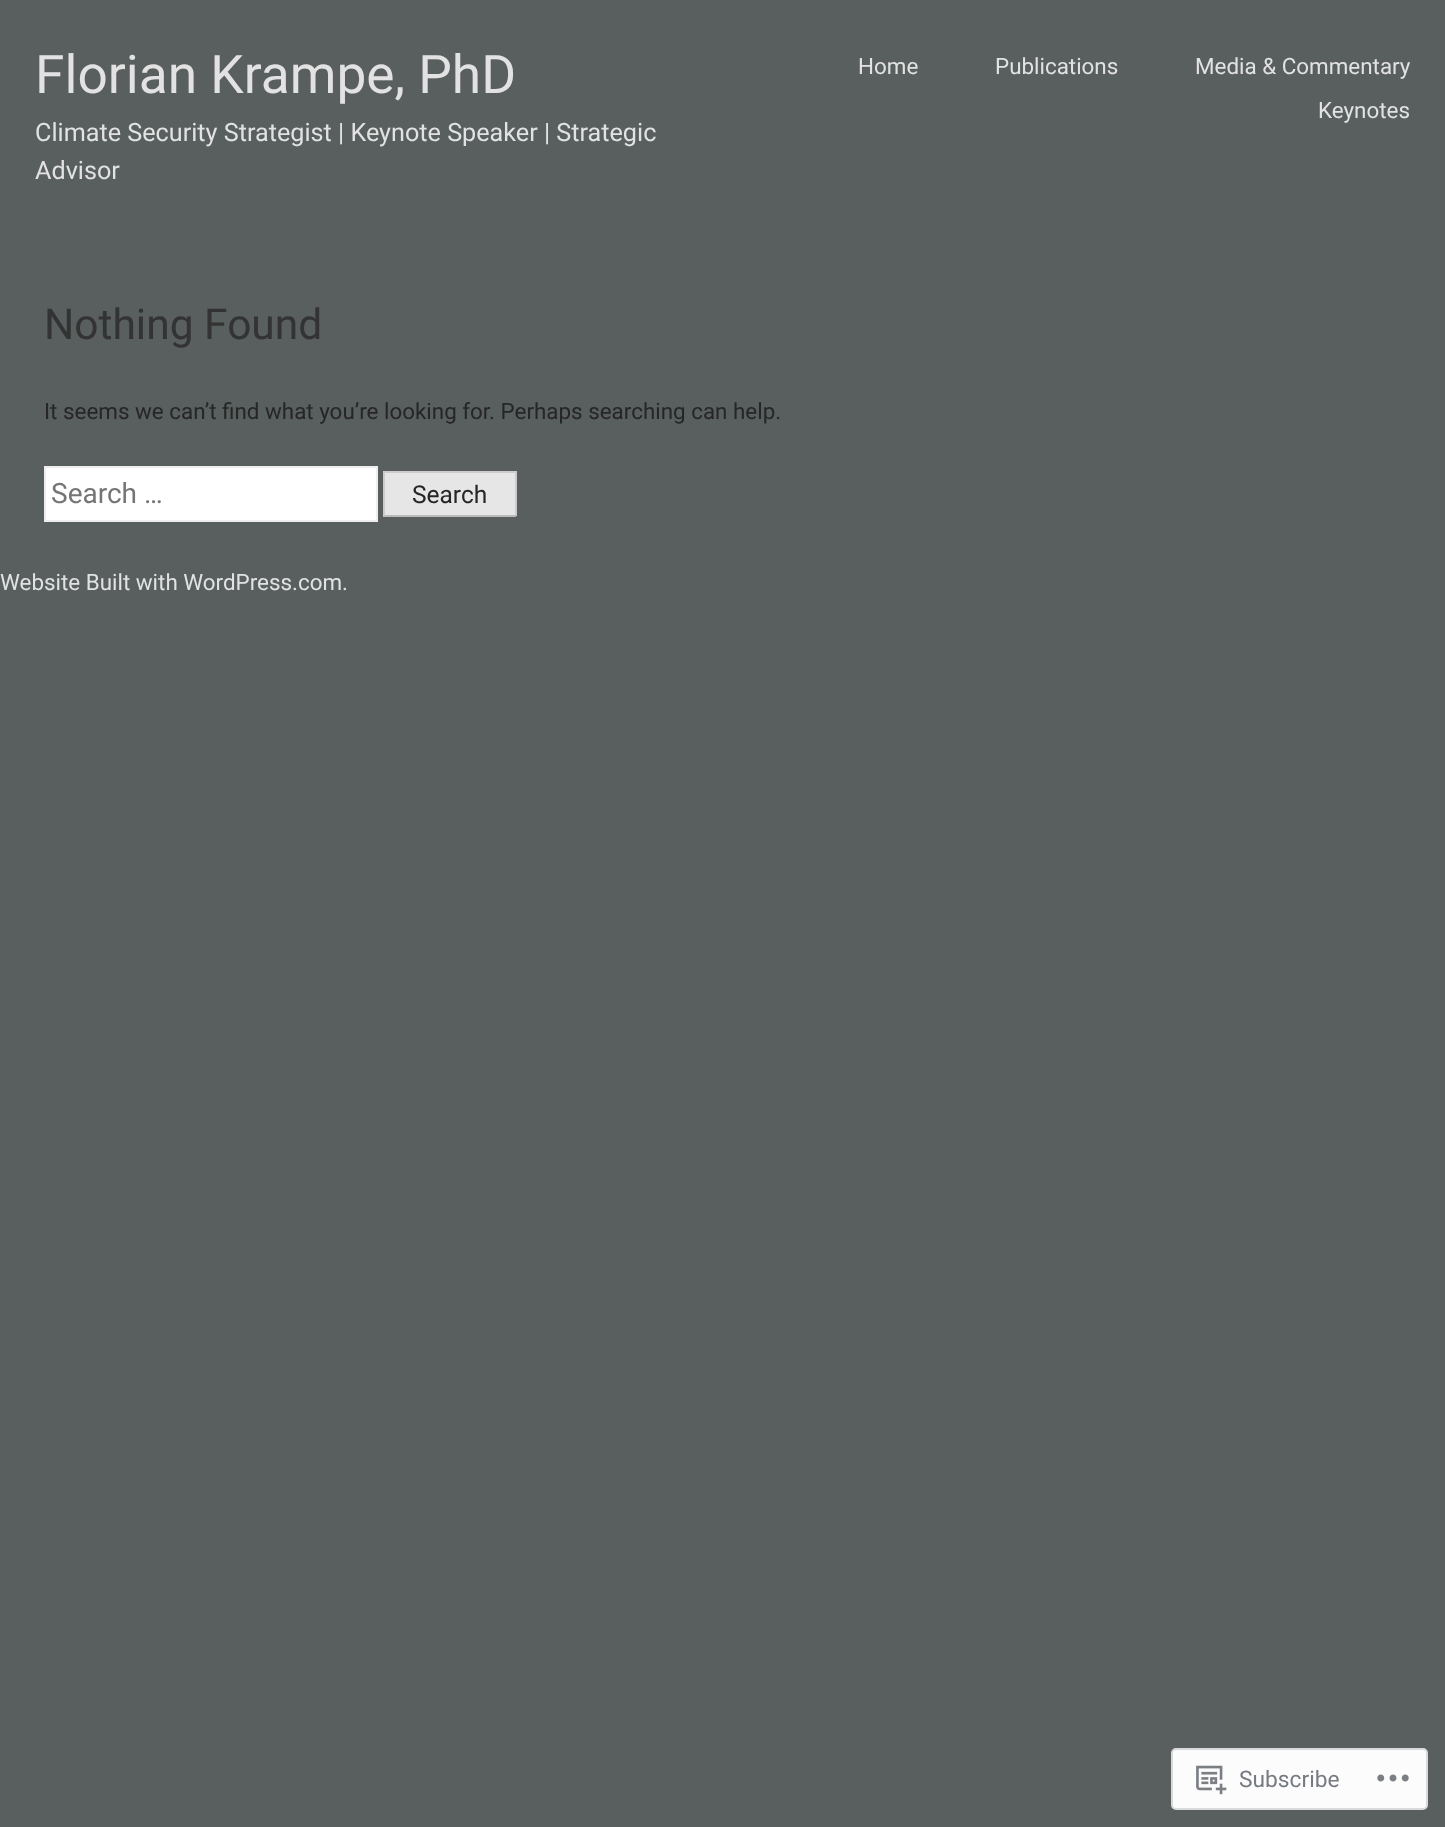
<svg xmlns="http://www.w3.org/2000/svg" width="1445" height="1827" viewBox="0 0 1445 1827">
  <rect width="100%" height="100%" fill="#585f5e"/>
  <path d="M45 467h332v54H45z" fill="#fff" stroke="#eee" stroke-width="2"/>
  <path d="M385 473h130v42H385z" fill="#e6e6e6"/>
  <path d="M383 471h133v2H383z" fill="#ccc"/>
  <path d="M515 471h2v45H515z" fill="#ccc"/>
  <path d="M383 515h133v2H383z" fill="#bbb"/>
  <path d="M383 471h2v45H383z" fill="#ccc"/>
  <rect x="1172" y="1749" width="255" height="60" rx="4" fill="#fcfcfc" stroke="#d9dadb" stroke-width="2"/>
  <image x="1196" y="1765" width="31" height="30" href="img/1.png"/>
  <image x="1377" y="1774" width="32" height="8" href="img/2.png"/>
  <text x="35" y="93" font-family="Roboto" font-size="53.25" fill="#e2e2e2">Florian Krampe, PhD</text>
  <g font-family="Roboto" font-size="25.2" fill="#e2e2e2">
    <text x="35" y="141">Climate Security Strategist | Keynote Speaker | Strategic</text>
    <text x="35" y="179">Advisor</text>
  </g>
  <g font-family="Roboto" font-size="22.4" fill="#e2e2e2">
    <text x="858" y="74">Home</text>
    <text x="995" y="74">Publications</text>
    <text x="1195" y="74">Media &amp; Commentary</text>
    <text x="1318" y="118">Keynotes</text>
  </g>
  <text x="44" y="339" font-family="Roboto" font-size="42.5" fill="#333">Nothing Found</text>
  <text x="44" y="419" font-family="Roboto" font-size="22.4" fill="#262626">It seems we can’t find what you’re looking for. Perhaps searching can help.</text>
  <text x="51" y="503" font-family="Roboto" font-size="28" fill="#757575">Search …</text>
  <text x="412" y="503" font-family="Roboto" font-size="24.5" fill="#262626">Search</text>
  <text x="0" y="590" font-family="Roboto" font-size="22.4" fill="#e2e2e2">Website Built with WordPress.com.</text>
  <text x="1239" y="1787" font-family="Roboto" font-size="22.75" fill="#777b81">Subscribe</text>
</svg>
